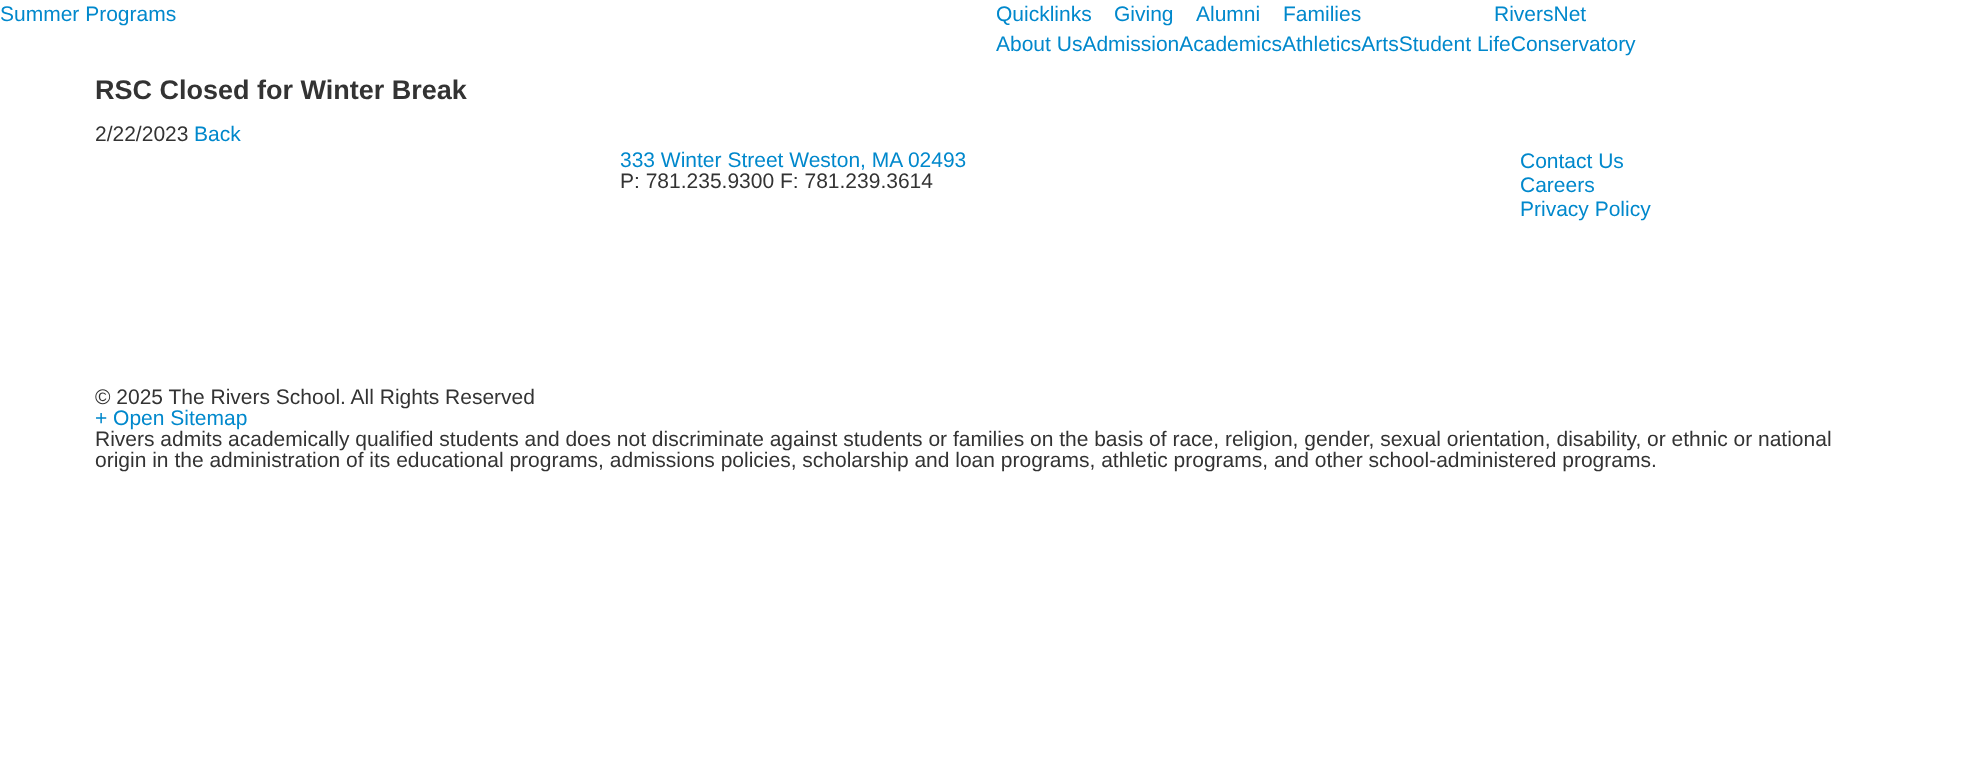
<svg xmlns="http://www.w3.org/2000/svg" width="1966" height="772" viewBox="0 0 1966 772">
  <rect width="100%" height="100%" fill="#fff"/>
  <g font-family="Liberation Sans" font-size="21" fill="#08c">
    <text x="0" y="21">Summer Programs</text>
    <text x="996" y="21">Quicklinks</text>
    <text x="1114" y="21">Giving</text>
    <text x="1196" y="21">Alumni</text>
    <text x="1283" y="21">Families</text>
    <text x="1494" y="21">RiversNet</text>
    <text x="996" y="51">About UsAdmissionAcademicsAthleticsArtsStudent LifeConservatory</text>
  </g>
  <text x="95" y="99" font-family="Liberation Sans" font-size="27" font-weight="bold" fill="#333">RSC Closed for Winter Break</text>
  <text x="95" y="141" font-family="Liberation Sans" font-size="21" fill="#333">2/22/2023</text>
  <g font-family="Liberation Sans" font-size="21" fill="#08c">
    <text x="194" y="141">Back</text>
    <text x="620" y="167">333 Winter Street Weston, MA 02493</text>
  </g>
  <text x="620" y="188" font-family="Liberation Sans" font-size="21" fill="#333">P: 781.235.9300 F: 781.239.3614</text>
  <g font-family="Liberation Sans" font-size="21" fill="#08c">
    <text x="1520" y="168">Contact Us</text>
    <text x="1520" y="192">Careers</text>
    <text x="1520" y="216">Privacy Policy</text>
  </g>
  <text x="95" y="404" font-family="Liberation Sans" font-size="21" fill="#333">© 2025 The Rivers School. All Rights Reserved</text>
  <text x="95" y="425" font-family="Liberation Sans" font-size="21" fill="#08c">+ Open Sitemap</text>
  <g font-family="Liberation Sans" font-size="21" fill="#333">
    <text x="95" y="446">Rivers admits academically qualified students and does not discriminate against students or families on the basis of race, religion, gender, sexual orientation, disability, or ethnic or national</text>
    <text x="95" y="467">origin in the administration of its educational programs, admissions policies, scholarship and loan programs, athletic programs, and other school-administered programs.</text>
  </g>
</svg>
